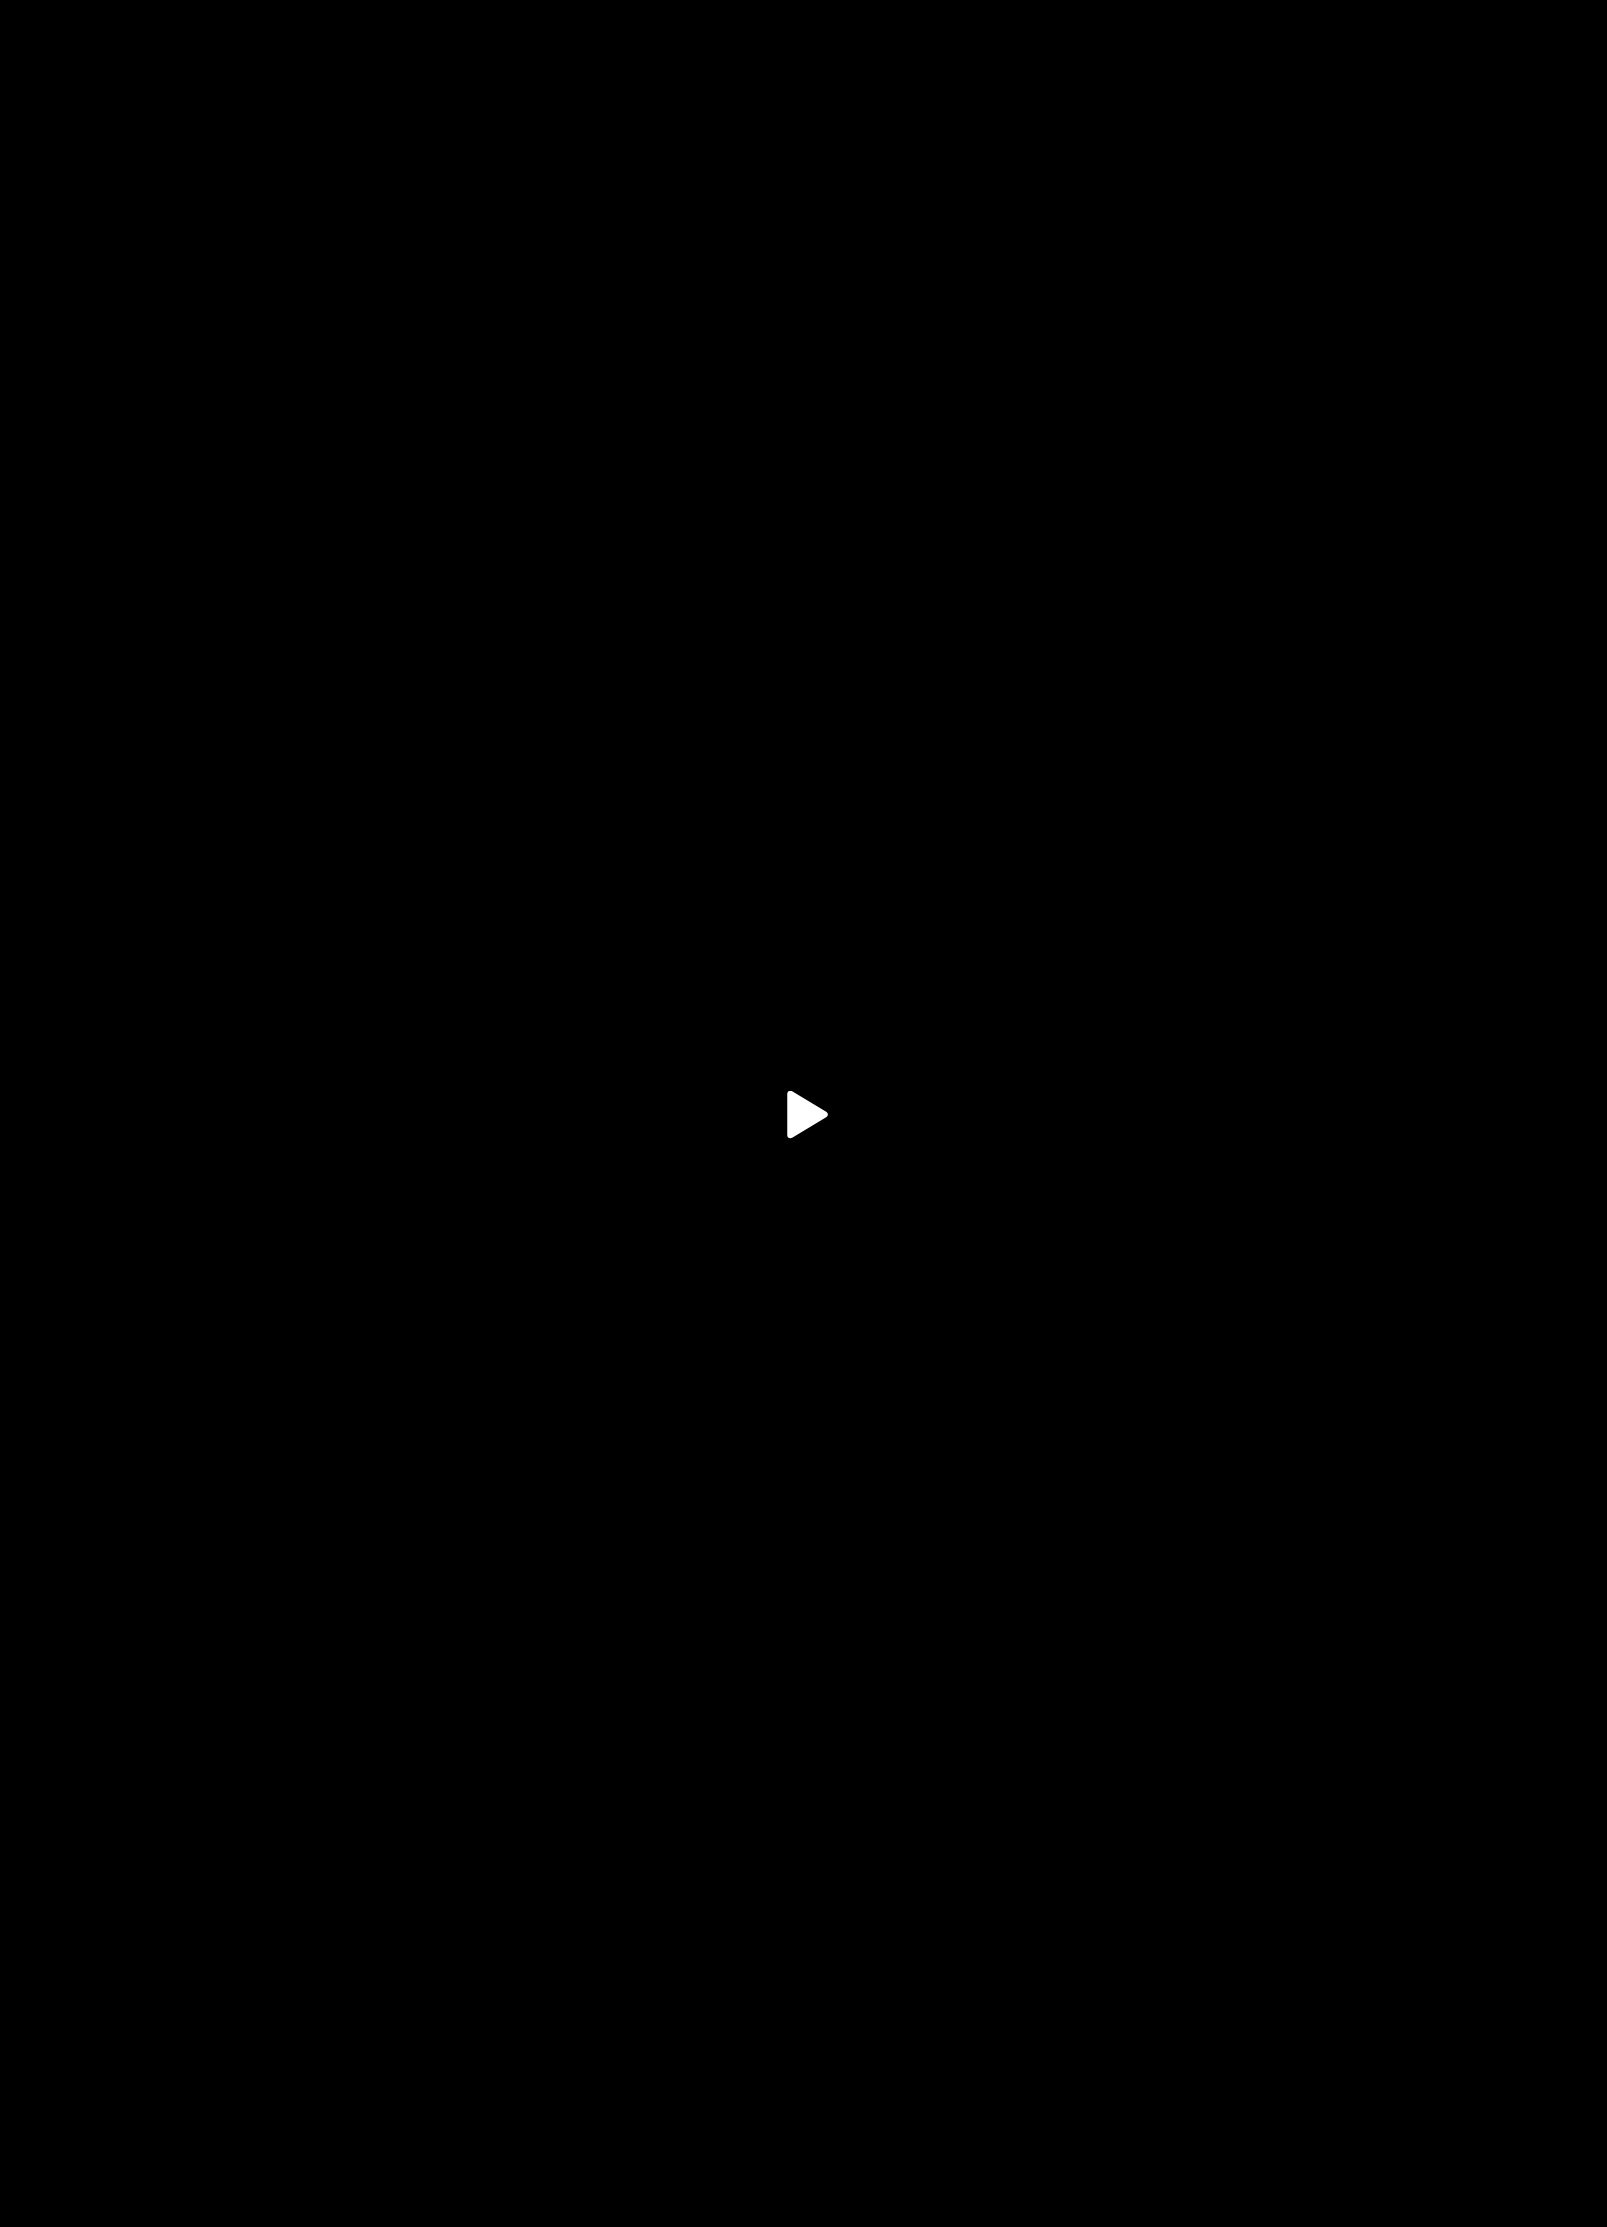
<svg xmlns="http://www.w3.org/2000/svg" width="1607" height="2227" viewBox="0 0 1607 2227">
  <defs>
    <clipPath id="clip1"><path d="M780 1091h48v48H780z"/></clipPath>
  </defs>
  <rect width="100%" height="100%" fill="#000"/>
  <path d="M825 1114L790 1094V1135Z" fill="#fff"/>
  <g clip-path="url(#clip1)">
    <path d="M824.5 1114.5L790.5 1094V1135Z" fill="none" stroke="#fff" stroke-width="6.5" stroke-linejoin="round"/>
  </g>
</svg>
